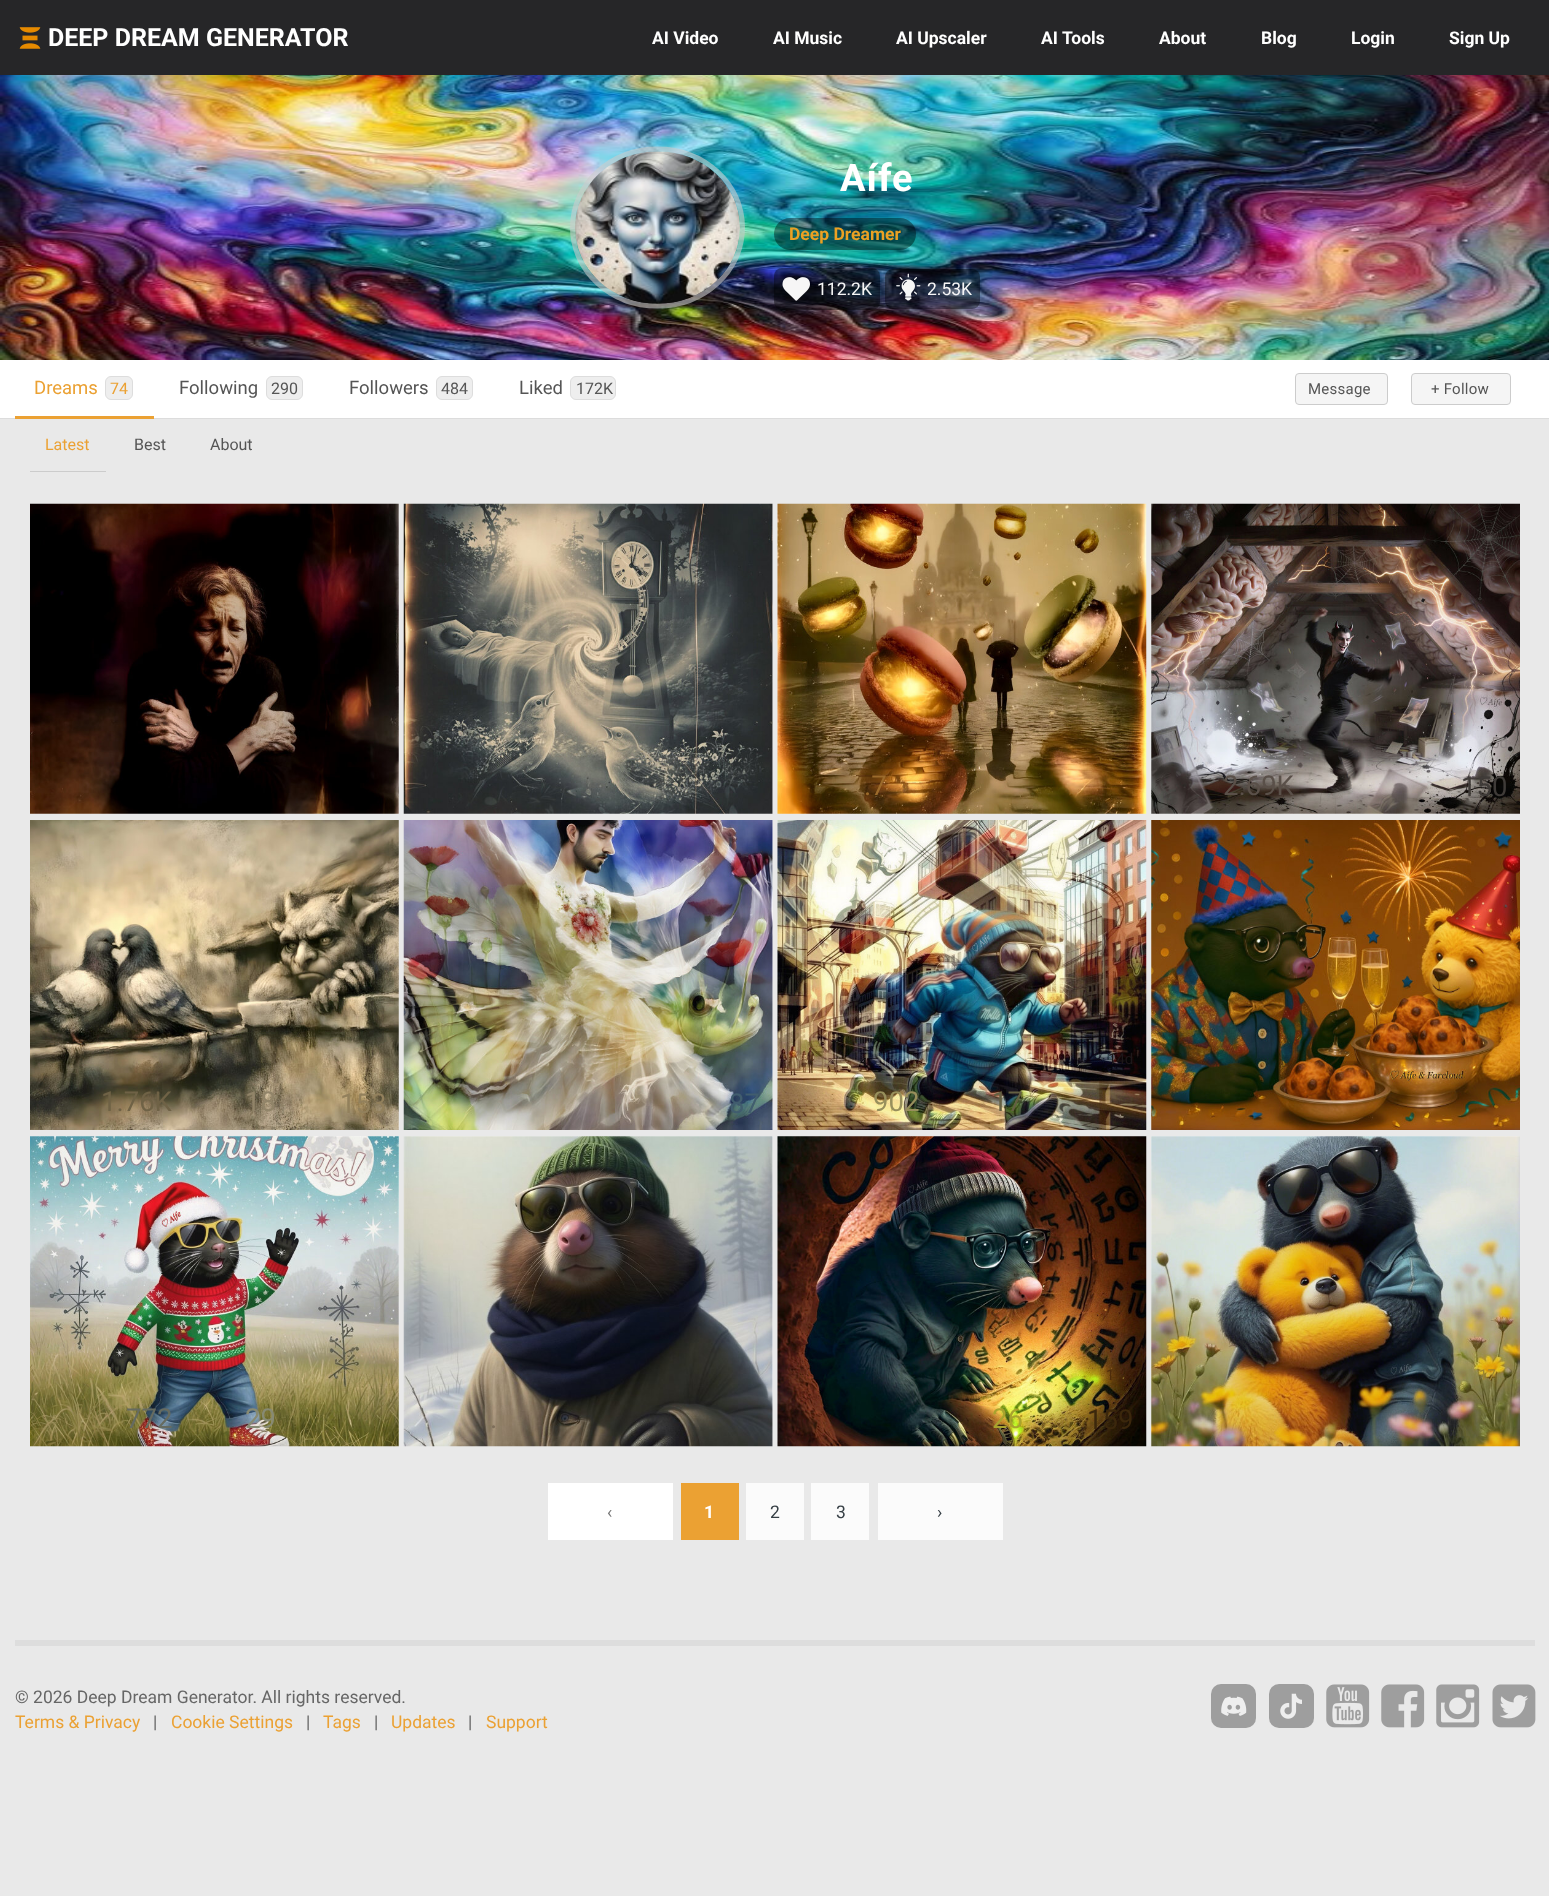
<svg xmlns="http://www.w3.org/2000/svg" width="1549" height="1896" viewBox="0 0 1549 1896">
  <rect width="100%" height="100%" fill="#e9e9e9"/>
  <path d="M0 0h1549v75H0z" fill="#262628"/>
  <image x="19" y="27" width="22" height="22" href="img/1.png"/>
  <image x="0" y="75" width="1549" height="285" href="img/2.png"/>
  <path d="M657.5 149C704.5 149 742.5 184 742.5 227.5C742.5 271 704.5 306 657.5 306C610.5 306 572.5 271 572.5 227.5C572.5 184 610.5 149 657.5 149Z" fill="none" stroke="#cccccc99" stroke-width="5"/>
  <image x="575" y="151" width="165" height="153" href="img/3.png"/>
  <rect x="774" y="218" width="142" height="32" rx="16" fill="#00000066"/>
  <rect x="774" y="268" width="106" height="42" rx="8" fill="#00000066"/>
  <image x="782" y="277" width="28" height="24" href="img/4.png"/>
  <rect x="885" y="269" width="95" height="40" rx="8" fill="#00000066"/>
  <image x="896" y="273" width="25" height="28" href="img/5.png"/>
  <path d="M0 360h1549v58H0z" fill="#fff"/>
  <path d="M0 418h1549v1H0z" fill="#dcdcdc"/>
  <path d="M15 416h139v3H15z" fill="#eba133"/>
  <rect x="105.5" y="376.5" width="27" height="23" rx="5.5" fill="#eee" stroke="#ddd"/>
  <rect x="266.5" y="376.5" width="36" height="23" rx="5.5" fill="#eee" stroke="#ddd"/>
  <rect x="436.5" y="376.5" width="36" height="23" rx="5.5" fill="#eee" stroke="#ddd"/>
  <rect x="570.5" y="376.5" width="45" height="23" rx="5.5" fill="#eee" stroke="#ddd"/>
  <rect x="1295.5" y="373.5" width="92" height="31" rx="3.5" fill="#f5f5f5" stroke="#ccc"/>
  <rect x="1411.5" y="373.5" width="99" height="31" rx="3.5" fill="#f5f5f5" stroke="#ccc"/>
  <path d="M30 471h76v1H30z" fill="#ccc"/>
  <path d="M30 504h369v310H30z" fill="#fafafa"/>
  <image x="30" y="503" width="369" height="311" href="img/6.png"/>
  <path d="M404 504h369v310H404z" fill="#fafafa"/>
  <image x="403" y="503" width="370" height="311" href="img/7.png"/>
  <image x="777" y="503" width="370" height="311" href="img/8.png"/>
  <path d="M1151 504h369v310H1151z" fill="#fafafa"/>
  <image x="1151" y="503" width="369" height="311" href="img/9.png"/>
  <image x="30" y="820" width="369" height="310" href="img/10.png"/>
  <path d="M772 820h1v310H772z" fill="#fafafa"/>
  <image x="403" y="820" width="370" height="310" href="img/11.png"/>
  <image x="777" y="820" width="370" height="310" href="img/12.png"/>
  <image x="1151" y="820" width="369" height="310" href="img/13.png"/>
  <image x="777" y="1136" width="370" height="311" href="img/14.png"/>
  <path d="M1151 1136h369v310H1151z" fill="#fafafa"/>
  <image x="1151" y="1136" width="369" height="311" href="img/15.png"/>
  <path d="M30 1136h369v310H30z" fill="#fafafa"/>
  <image x="30" y="1136" width="369" height="311" href="img/16.png"/>
  <path d="M404 1136h369v310H404z" fill="#fafafa"/>
  <image x="403" y="1136" width="370" height="311" href="img/17.png"/>
  <path d="M548 1483h125v57H548z" fill="#fff"/>
  <path d="M681 1483h58v57H681z" fill="#eba133"/>
  <path d="M746 1483h58v57H746z" fill="#fbfbfb"/>
  <path d="M811 1483h58v57H811z" fill="#fbfbfb"/>
  <path d="M878 1483h125v57H878z" fill="#fbfbfb"/>
  <path d="M15 1640h1520v6H15z" fill="#ddd"/>
  <rect x="1211" y="1684" width="45" height="44" rx="10" fill="#9e9e9e"/>
  <image x="1221" y="1696" width="26" height="20" href="img/18.png"/>
  <rect x="1269" y="1684" width="45" height="44" rx="10" fill="#9e9e9e"/>
  <image x="1280" y="1693" width="22" height="26" href="img/19.png"/>
  <image x="1326" y="1684" width="44" height="44" href="img/20.png"/>
  <image x="1381" y="1684" width="44" height="44" href="img/21.png"/>
  <image x="1436" y="1684" width="44" height="44" href="img/22.png"/>
  <image x="1492" y="1684" width="44" height="44" href="img/23.png"/>
  <text x="48" y="46" font-family="Roboto" font-size="25" font-weight="bold" fill="#fff">DEEP DREAM GENERATOR</text>
  <g font-family="Roboto" font-size="17.5" font-weight="bold" fill="#fff">
    <text x="652" y="44">AI Video</text>
    <text x="773" y="44">AI Music</text>
    <text x="896" y="44">AI Upscaler</text>
    <text x="1041" y="44">AI</text>
    <text x="1062" y="44">Tools</text>
    <text x="1159" y="44">About</text>
    <text x="1261" y="44">Blog</text>
    <text x="1351" y="44">Login</text>
    <text x="1449" y="44">Sign Up</text>
  </g>
  <text x="840" y="191" font-family="Roboto" font-size="38" font-weight="bold" letter-spacing="1" fill="#fff">Aífe</text>
  <text x="789" y="240" font-family="Roboto" font-size="17.5" font-weight="bold" fill="#eba123">Deep Dreamer</text>
  <g font-family="Roboto" font-size="17.5" fill="#f6f6f6">
    <text x="817" y="295">112.2K</text>
    <text x="927" y="295">2.53K</text>
  </g>
  <text x="34" y="394" font-family="Roboto" font-size="18.5" fill="#eba133">Dreams</text>
  <text x="110" y="394" font-family="Roboto" font-size="16" fill="#eba133">74</text>
  <text x="179" y="394" font-family="Roboto" font-size="18.5" fill="#555">Following</text>
  <text x="271" y="394" font-family="Roboto" font-size="16" fill="#555">290</text>
  <text x="349" y="394" font-family="Roboto" font-size="18.5" fill="#555">Followers</text>
  <text x="441" y="394" font-family="Roboto" font-size="16" fill="#555">484</text>
  <text x="519" y="394" font-family="Roboto" font-size="18.5" fill="#555">Liked</text>
  <text x="576" y="394" font-family="Roboto" font-size="16" fill="#555">172K</text>
  <g font-family="Roboto" font-size="15" letter-spacing="0.25" fill="#555">
    <text x="1308" y="394">Message</text>
    <text x="1431" y="394">+ Follow</text>
  </g>
  <text x="45" y="450" font-family="Roboto" font-size="16" fill="#eba133">Latest</text>
  <g font-family="Roboto" font-size="16" fill="#555">
    <text x="134" y="450">Best</text>
    <text x="210" y="450">About</text>
  </g>
  <text x="864" y="795" font-family="Roboto" font-size="27.5" fill="#9c6b2c">.7</text>
  <text x="1491" y="748" font-family="Roboto" font-size="15" fill="#918989">5d</text>
  <text x="1223" y="795" font-family="Roboto" font-size="27.5" fill="#5a5049">2.69K</text>
  <text x="1461" y="796" font-family="Roboto" font-size="27.5" fill="#3f3b38">150</text>
  <text x="101" y="1111" font-family="Roboto" font-size="27.5" fill="#6f6246">1.76K</text>
  <text x="245" y="1111" font-family="Roboto" font-size="27.5" fill="#918469">18</text>
  <text x="340" y="1113" font-family="Roboto" font-size="27.5" fill="#92805c">153</text>
  <text x="729" y="1113" font-family="Roboto" font-size="27.5" fill="#415d6e">87</text>
  <text x="1108" y="1064" font-family="Roboto" font-size="15" fill="#1d1719">14d</text>
  <text x="873" y="1111" font-family="Roboto" font-size="27.5" fill="#988f5c">902</text>
  <text x="992" y="1111" font-family="Roboto" font-size="27.5" fill="#645f42">17</text>
  <text x="1106" y="1380" font-family="Roboto" font-size="15" fill="#4e2c0b">1</text>
  <text x="992" y="1428" font-family="Roboto" font-size="27.5" fill="#a9a32e">26</text>
  <text x="1087" y="1429" font-family="Roboto" font-size="27.5" fill="#3b270c">159</text>
  <text x="1479" y="1380" font-family="Roboto" font-size="15" fill="#9d852f">17</text>
  <text x="126" y="1428" font-family="Roboto" font-size="27.5" fill="#666b60">772</text>
  <text x="245" y="1428" font-family="Roboto" font-size="27.5" fill="#878a73">29</text>
  <text x="490" y="1428" font-family="Roboto" font-size="27.5" fill="#7d6e5a">.</text>
  <text x="607" y="1518" font-family="Roboto" font-size="17.5" fill="#777">‹</text>
  <text x="704" y="1518" font-family="Roboto" font-size="17.5" font-weight="bold" fill="#fff">1</text>
  <g font-family="Roboto" font-size="17.5" fill="#363f45">
    <text x="770" y="1518">2</text>
    <text x="836" y="1518">3</text>
    <text x="937" y="1518">›</text>
  </g>
  <text x="15" y="1703" font-family="Roboto" font-size="17.5" fill="#666">© 2026 Deep Dream Generator. All rights reserved.</text>
  <text x="15" y="1728" font-family="Roboto" font-size="17.5" fill="#eba133">Terms &amp; Privacy</text>
  <text x="153" y="1728" font-family="Roboto" font-size="17.5" fill="#666">|</text>
  <text x="171" y="1728" font-family="Roboto" font-size="17.5" fill="#eba133">Cookie Settings</text>
  <text x="306" y="1728" font-family="Roboto" font-size="17.5" fill="#666">|</text>
  <text x="323" y="1728" font-family="Roboto" font-size="17.5" fill="#eba133">Tags</text>
  <text x="374" y="1728" font-family="Roboto" font-size="17.5" fill="#666">|</text>
  <text x="391" y="1728" font-family="Roboto" font-size="17.5" fill="#eba133">Updates</text>
  <text x="468" y="1728" font-family="Roboto" font-size="17.5" fill="#666">|</text>
  <text x="486" y="1728" font-family="Roboto" font-size="17.5" fill="#eba133">Support</text>
</svg>
